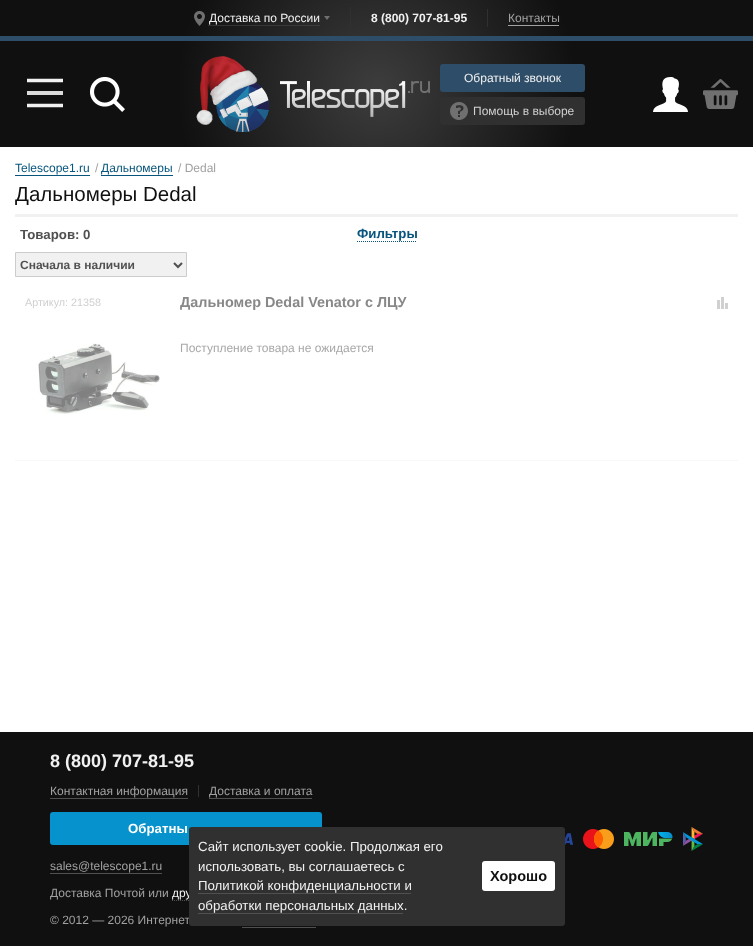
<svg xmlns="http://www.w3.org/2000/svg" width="753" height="946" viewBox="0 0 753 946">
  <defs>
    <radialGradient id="g1" gradientUnits="userSpaceOnUse" cx="377" cy="88" r="200"><stop offset="0" stop-color="#3d3d3d"/><stop offset="1" stop-color="#101010"/></radialGradient>
  </defs>
  <rect width="100%" height="100%" fill="#fff"/>
  <path d="M0 0h753v147H0z" fill="url(#g1)"/>
  <image x="194" y="11" width="11" height="15" href="img/1.png"/>
  <path d="M208.5 25.5H319.5" fill="none" stroke="#505050" stroke-dasharray="1 1"/>
  <path d="M324 16H330L327 20Z" fill="#707070"/>
  <path d="M350 7h1v22H350z" fill="#303030"/>
  <path d="M487 9h1v18H487z" fill="#303030"/>
  <path d="M508 25h51v1H508z" fill="#a1a1a1"/>
  <path d="M0 36h753v5H0z" fill="#2e4d68"/>
  <path d="M27 80.5H63" fill="none" stroke="#f1f1f1" stroke-width="3.6"/>
  <path d="M27 91h36v4H27z" fill="#dbdbdb"/>
  <path d="M27 105.5H63" fill="none" stroke="#f1f1f1" stroke-width="3.6"/>
  <image x="90" y="77" width="35" height="35" href="img/2.png"/>
  <image x="196" y="56" width="73" height="76" href="img/3.png"/>
  <image x="280" y="81" width="150" height="36" href="img/4.png"/>
  <rect x="440" y="64" width="145" height="28" rx="3" fill="#2e4d68"/>
  <rect x="440" y="97" width="145" height="28" rx="3" fill="#303030"/>
  <image x="450" y="102" width="18" height="18" href="img/5.png"/>
  <image x="653" y="77" width="35" height="35" href="img/6.png"/>
  <image x="703" y="79" width="35" height="30" href="img/7.png"/>
  <path d="M15 175h75v1H15z" fill="#07557c"/>
  <path d="M101 175h72v1H101z" fill="#07557c"/>
  <path d="M15 214h723v3H15z" fill="#f1f1f1"/>
  <path d="M357 241.5H417" fill="none" stroke="#07557c" stroke-dasharray="1 1"/>
  <path d="M15.5 252.5h171v24H15.5z" fill="#f1f1f1" stroke="#ccc"/>
  <path d="M174 263L178 267L182 263" fill="none" stroke="#505050" stroke-width="2"/>
  <path d="M15 460h723v1H15z" fill="#f8f8f8"/>
  <image x="38" y="343" width="122" height="71" href="img/8.png"/>
  <path d="M725 303h3v6H725z" fill="#d0d0d0"/>
  <path d="M717 300h3v9H717z" fill="#d0d0d0"/>
  <path d="M721 297h3v12H721z" fill="#d0d0d0"/>
  <path d="M0 732h753v214H0z" fill="#101010"/>
  <path d="M50 798h138v1H50z" fill="#505050"/>
  <path d="M198 785h1v12H198z" fill="#303030"/>
  <path d="M209 798h103v1H209z" fill="#505050"/>
  <rect x="50" y="812" width="272" height="33" rx="3" fill="#0692cc"/>
  <path d="M50 873h112v1H50z" fill="#505050"/>
  <path d="M172 900.5H313.5" fill="none" stroke="#505050" stroke-dasharray="1 1"/>
  <path d="M242 927h74v1H242z" fill="#505050"/>
  <image x="565" y="833" width="8" height="12" href="img/9.png"/>
  <image x="583" y="829" width="31" height="20" href="img/10.png"/>
  <image x="624" y="832" width="49" height="14" href="img/11.png"/>
  <image x="683" y="827" width="20" height="24" href="img/12.png"/>
  <text x="209" y="22" font-family="Liberation Sans" font-size="12" fill="#f1f1f1">Доставка по России</text>
  <text x="371" y="22" font-family="Liberation Sans" font-size="12" font-weight="bold" fill="#f1f1f1">8 (800) 707-81-95</text>
  <text x="508" y="22" font-family="Liberation Sans" font-size="12" fill="#a1a1a1">Контакты</text>
  <text x="464" y="82" font-family="Liberation Sans" font-size="12" fill="#f1f1f1">Обратный звонок</text>
  <text x="473" y="115" font-family="Liberation Sans" font-size="12" fill="#d0d0d0">Помощь в выборе</text>
  <text x="15" y="172" font-family="Liberation Sans" font-size="12" fill="#07557c">Telescope1.ru</text>
  <text x="95" y="172" font-family="Liberation Sans" font-size="12" fill="#a1a1a1">/</text>
  <text x="101" y="172" font-family="Liberation Sans" font-size="12" fill="#07557c">Дальномеры</text>
  <text x="178" y="172" font-family="Liberation Sans" font-size="12" fill="#a1a1a1">/ Dedal</text>
  <text x="15" y="201" font-family="Liberation Sans" font-size="20.5" fill="#101010">Дальномеры Dedal</text>
  <text x="20" y="239" font-family="Liberation Sans" font-size="13.25" font-weight="bold" fill="#505050">Товаров: 0</text>
  <text x="357" y="238" font-family="Liberation Sans" font-size="13.25" font-weight="bold" fill="#07557c">Фильтры</text>
  <text x="20" y="269" font-family="Liberation Sans" font-size="12" font-weight="bold" fill="#505050">Сначала в наличии</text>
  <text x="25" y="306" font-family="Liberation Sans" font-size="10.75" fill="#d0d0d0">Артикул: 21358</text>
  <text x="180" y="307" font-family="Liberation Sans" font-size="14.4" font-weight="bold" fill="#888">Дальномер Dedal Venator с ЛЦУ</text>
  <text x="180" y="352" font-family="Liberation Sans" font-size="12" fill="#a8a8a8">Поступление товара не ожидается</text>
  <text x="50" y="767" font-family="Liberation Sans" font-size="18" font-weight="bold" fill="#f1f1f1">8 (800) 707-81-95</text>
  <g font-family="Liberation Sans" font-size="12" fill="#a1a1a1">
    <text x="50" y="795">Контактная информация</text>
    <text x="209" y="795">Доставка и оплата</text>
  </g>
  <text x="128" y="833" font-family="Liberation Sans" font-size="13.25" font-weight="bold" fill="#fff">Обратны</text>
  <g font-family="Liberation Sans" font-size="12" fill="#a1a1a1">
    <text x="50" y="870">sales@telescope1.ru</text>
    <text x="50" y="897">Доставка Почтой или</text>
  </g>
  <text x="172" y="897" font-family="Liberation Sans" font-size="12" fill="#f1f1f1">дру</text>
  <text x="50" y="924" font-family="Liberation Sans" font-size="12" fill="#a1a1a1">© 2012 — 2026 Интернет</text>
  <rect x="189" y="827" width="376" height="99" rx="3" fill="#303030"/>
  <g font-family="Liberation Sans" font-size="13.25" fill="#f1f1f1">
    <text x="198" y="851">Сайт использует cookie. Продолжая его</text>
    <text x="198" y="871">использовать, вы соглашаетесь с</text>
    <text x="198" y="890">Политикой конфиденциальности и</text>
  </g>
  <path d="M198 893h213v1H198z" fill="#505050"/>
  <text x="198" y="910" font-family="Liberation Sans" font-size="13.25" fill="#f1f1f1">обработки персональных данных.</text>
  <path d="M198 913h205v1H198z" fill="#505050"/>
  <rect x="482" y="861" width="73" height="30" rx="3" fill="#fff"/>
  <text x="490" y="881" font-family="Liberation Sans" font-size="14.5" font-weight="bold" fill="#101010">Хорошо</text>
</svg>
